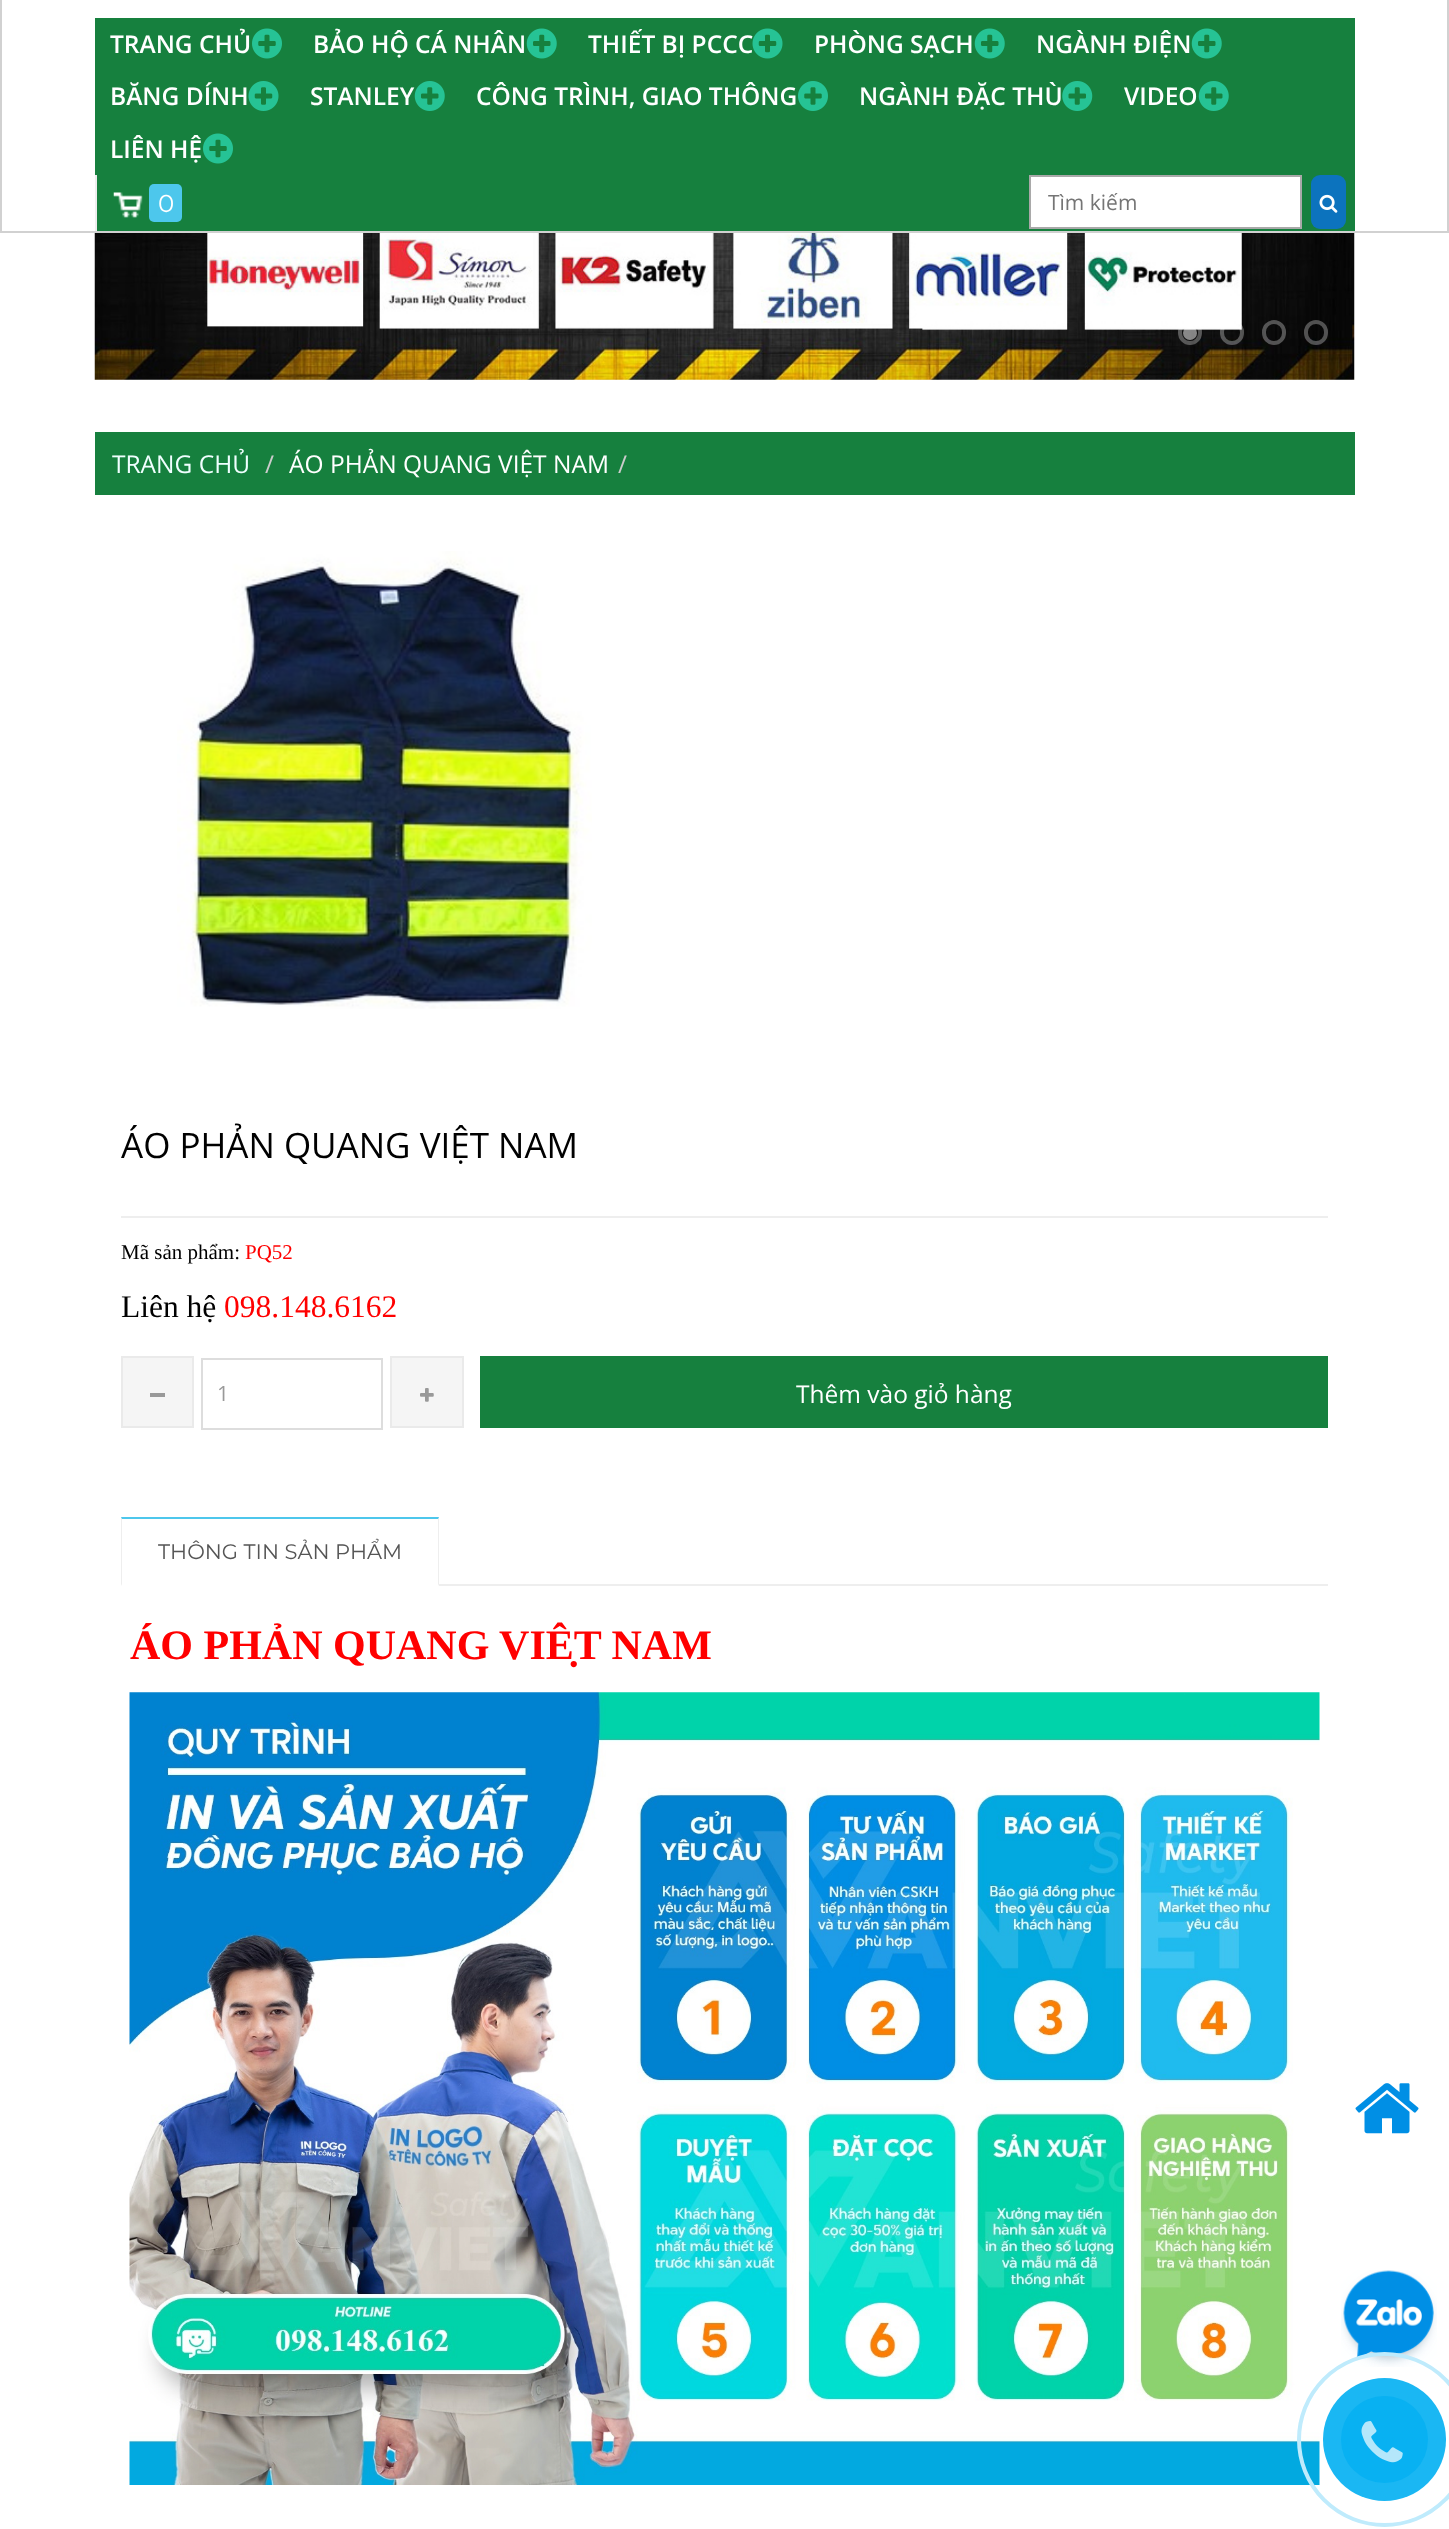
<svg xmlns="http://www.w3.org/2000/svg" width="1449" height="2529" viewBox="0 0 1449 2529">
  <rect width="100%" height="100%" fill="#fff"/>
  <path d="M1447 0h2v233H1447z" fill="#d1d1d1"/>
  <path d="M0 231h1449v2H0z" fill="#d1d1d1"/>
  <path d="M0 0h2v233H0z" fill="#d1d1d1"/>
  <path d="M95 18h1260v213H95z" fill="#16803e"/>
  <image x="252" y="28" width="30" height="31" href="img/1.png"/>
  <image x="526" y="28" width="31" height="31" href="img/2.png"/>
  <image x="752" y="28" width="31" height="31" href="img/3.png"/>
  <image x="974" y="28" width="31" height="31" href="img/2.png"/>
  <image x="1191" y="28" width="31" height="31" href="img/2.png"/>
  <image x="248" y="81" width="31" height="30" href="img/4.png"/>
  <image x="414" y="81" width="31" height="30" href="img/5.png"/>
  <image x="798" y="81" width="30" height="30" href="img/6.png"/>
  <image x="1062" y="81" width="31" height="30" href="img/7.png"/>
  <image x="1198" y="81" width="31" height="30" href="img/5.png"/>
  <image x="203" y="133" width="30" height="31" href="img/8.png"/>
  <path d="M95 175h2v56H95z" fill="#eee"/>
  <image x="113" y="192" width="30" height="26" href="img/9.png"/>
  <rect x="149" y="184" width="33" height="38" rx="5" fill="#4dc7ec"/>
  <path d="M1030 176h271v52H1030z" fill="#fff" stroke="#a9a9a9" stroke-width="2"/>
  <rect x="1311" y="175" width="35" height="54" rx="9" fill="#0c73be"/>
  <image x="1319" y="194" width="19" height="19" href="img/10.png"/>
  <image x="94" y="233" width="1261" height="147" href="img/11.png"/>
  <rect x="1180" y="322" width="20" height="21" rx="10" fill="none" stroke="#ffffff4d" stroke-width="4"/>
  <circle cx="1190" cy="333" r="7" fill="#ffffff80"/>
  <rect x="1222" y="322" width="20" height="21" rx="10" fill="none" stroke="#ffffff4d" stroke-width="4"/>
  <rect x="1264" y="322" width="20" height="21" rx="10" fill="none" stroke="#ffffff4d" stroke-width="4"/>
  <rect x="1306" y="322" width="20" height="21" rx="10" fill="none" stroke="#ffffff4d" stroke-width="4"/>
  <path d="M95 432h1260v63H95z" fill="#16803e"/>
  <image x="177" y="551" width="415" height="458" href="img/12.png"/>
  <path d="M121 1216h1207v2H121z" fill="#eee"/>
  <path d="M122 1357h71v70H122z" fill="#f5f5f5" stroke="#eaeaea" stroke-width="2"/>
  <path d="M150 1393h15v4H150z" fill="#999"/>
  <path d="M202 1359h180v70H202z" fill="none" stroke="#ddd" stroke-width="2"/>
  <path d="M391 1357h72v70H391z" fill="#f5f5f5" stroke="#eaeaea" stroke-width="2"/>
  <image x="420" y="1388" width="14" height="14" href="img/13.png"/>
  <path d="M480 1356h848v72H480z" fill="#16803e"/>
  <path d="M439 1584h889v2H439z" fill="#eee"/>
  <path d="M121 1517h318v2H121z" fill="#4dc7ec"/>
  <path d="M439 1517V1586L438 1584V1519Z" fill="#eee"/>
  <path d="M121 1586V1517L122 1519V1584Z" fill="#eee"/>
  <image x="129" y="1692" width="1191" height="793" href="img/14.png"/>
  <image x="1355" y="2083" width="64" height="51" href="img/15.png"/>
  <image x="1341" y="2270" width="96" height="97" href="img/16.png"/>
  <circle cx="1384.5" cy="2439.5" r="85.5" fill="none" stroke="#bfebfc" stroke-width="4"/>
  <circle cx="1384.5" cy="2439.5" r="61.5" fill="#1ab7f3"/>
  <circle cx="1384.5" cy="2439.5" r="43.5" fill="#08b1f2"/>
  <image x="1361" y="2421" width="42" height="42" href="img/17.png"/>
  <g font-family="Open Sans" font-size="24.5" font-weight="600" fill="#fff">
    <text x="110" y="53">TRANG CHỦ</text>
    <text x="313" y="53">BẢO HỘ CÁ NHÂN</text>
    <text x="588" y="53">THIẾT BỊ PCCC</text>
    <text x="814" y="53">PHÒNG SẠCH</text>
    <text x="1036" y="53">NGÀNH ĐIỆN</text>
    <text x="110" y="105">BĂNG DÍNH</text>
    <text x="310" y="105">STANLEY</text>
    <text x="476" y="105">CÔNG TRÌNH, GIAO THÔNG</text>
    <text x="859" y="105">NGÀNH ĐẶC THÙ</text>
    <text x="1124" y="105">VIDEO</text>
    <text x="110" y="158">LIÊN HỆ</text>
  </g>
  <text x="158" y="212" font-family="Montserrat" font-size="24.5" fill="#fff">0</text>
  <text x="1048" y="210" font-family="Open Sans" font-size="21" fill="#757575">Tìm kiếm</text>
  <text x="112" y="473" font-family="Open Sans" font-size="24.5" fill="#f0ffff">TRANG CHỦ</text>
  <text x="265" y="473" font-family="Open Sans" font-size="24.5" fill="#ccc">/</text>
  <text x="289" y="473" font-family="Open Sans" font-size="24.5" fill="#fff">ÁO PHẢN QUANG VIỆT NAM</text>
  <text x="618" y="473" font-family="Open Sans" font-size="24.5" fill="#ccc">/</text>
  <text x="121" y="1158" font-family="Open Sans" font-size="35" fill="#000">ÁO PHẢN QUANG VIỆT NAM</text>
  <text x="121" y="1259" font-family="Liberation Serif" font-size="21" fill="#000">Mã sản phẩm:</text>
  <text x="245" y="1259" font-family="Liberation Serif" font-size="21" fill="#f00">PQ52</text>
  <text x="121" y="1317" font-family="Liberation Serif" font-size="31.5" fill="#000">Liên hệ</text>
  <text x="224" y="1317" font-family="Liberation Serif" font-size="31.5" fill="#f00">098.148.6162</text>
  <text x="217" y="1401" font-family="Open Sans" font-size="21" fill="#999">1</text>
  <text x="796" y="1403" font-family="Open Sans" font-size="24.5" fill="#fff">Thêm vào giỏ hàng</text>
  <text x="158" y="1559" font-family="Montserrat" font-size="21" fill="#555">THÔNG TIN SẢN PHẨM</text>
  <text x="130" y="1659" font-family="Liberation Serif" font-size="42" font-weight="bold" fill="#f00">ÁO PHẢN QUANG VIỆT NAM</text>
</svg>
